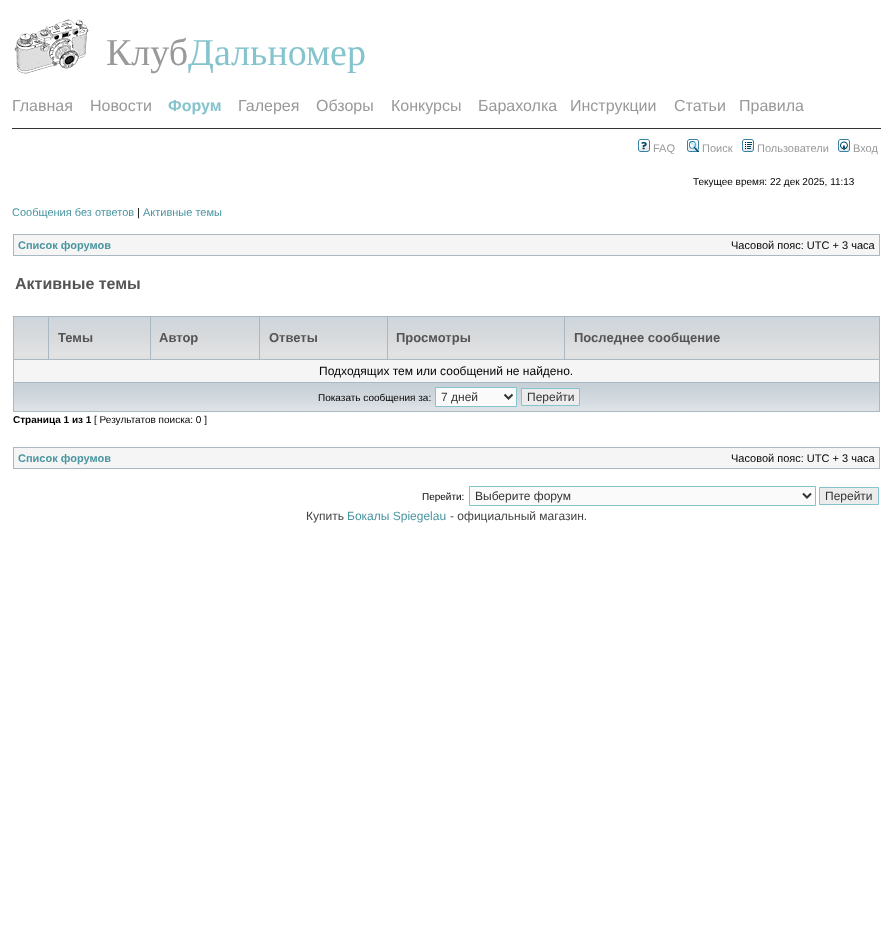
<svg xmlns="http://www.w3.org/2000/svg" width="893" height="936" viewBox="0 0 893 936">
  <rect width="100%" height="100%" fill="#fff"/>
  <image x="14" y="19" width="75" height="55" href="img/1.png"/>
  <path d="M12 128h869v1H12z" fill="#333"/>
  <image x="638" y="139" width="12" height="13" href="img/2.png"/>
  <image x="687" y="139" width="12" height="13" href="img/3.png"/>
  <image x="742" y="139" width="12" height="13" href="img/4.png"/>
  <image x="838" y="139" width="12" height="13" href="img/5.png"/>
  <path d="M13 234h867v22H13z" fill="#a9b8c2"/>
  <path d="M14 235h865v20H14z" fill="#f5f5f5"/>
  <path d="M13 316h867v96H13z" fill="#a9b8c2"/>
  <image x="14" y="317" width="34" height="42" href="img/6.png"/>
  <image x="49" y="317" width="101" height="42" href="img/7.png"/>
  <image x="151" y="317" width="108" height="42" href="img/8.png"/>
  <image x="260" y="317" width="127" height="42" href="img/9.png"/>
  <image x="388" y="317" width="176" height="42" href="img/10.png"/>
  <image x="565" y="317" width="314" height="42" href="img/11.png"/>
  <path d="M14 360h865v22H14z" fill="#f5f5f5"/>
  <image x="14" y="383" width="865" height="28" href="img/12.png"/>
  <path d="M435.5 387.5h81v19H435.5z" fill="#fafafa" stroke="#85c4cd"/>
  <path d="M504.5 394.5L508.5 398.5L512.5 394.5" fill="none" stroke="#333" stroke-width="2"/>
  <path d="M521.5 388.5h58v17H521.5z" fill="#ececec" stroke="#85c4cd"/>
  <path d="M13 447h867v22H13z" fill="#a9b8c2"/>
  <path d="M14 448h865v20H14z" fill="#f5f5f5"/>
  <path d="M469.5 486.5h346v19H469.5z" fill="#fafafa" stroke="#85c4cd"/>
  <path d="M803 493.5L807 497.5L811 493.5" fill="none" stroke="#333" stroke-width="2"/>
  <path d="M819.5 487.5h59v17H819.5z" fill="#ececec" stroke="#85c4cd"/>
  <text x="106" y="65" font-family="Liberation Serif" font-size="38" fill="#999">Клуб</text>
  <text x="188" y="65" font-family="Liberation Serif" font-size="38" fill="#85c4cd">Дальномер</text>
  <g font-family="Liberation Sans" font-size="16" fill="#999">
    <text x="12" y="111">Главная</text>
    <text x="90" y="111">Новости</text>
  </g>
  <text x="168" y="111" font-family="Liberation Sans" font-size="16" font-weight="bold" fill="#85c4cd">Форум</text>
  <g font-family="Liberation Sans" font-size="16" fill="#999">
    <text x="238" y="111">Галерея</text>
    <text x="316" y="111">Обзоры</text>
    <text x="391" y="111">Конкурсы</text>
    <text x="478" y="111">Барахолка</text>
    <text x="570" y="111">Инструкции</text>
    <text x="674" y="111">Статьи</text>
    <text x="739" y="111">Правила</text>
  </g>
  <g font-family="Liberation Sans" font-size="11" fill="#999">
    <text x="653" y="152">FAQ</text>
    <text x="702" y="152">Поиск</text>
    <text x="757" y="152">Пользователи</text>
    <text x="853" y="152">Вход</text>
  </g>
  <text x="693" y="185" font-family="Liberation Sans" font-size="10" fill="#000">Текущее время: 22 дек 2025, 11:13</text>
  <text x="12" y="216" font-family="Liberation Sans" font-size="11" fill="#4995a0">Сообщения без ответов</text>
  <text x="137" y="216" font-family="Liberation Sans" font-size="11" fill="#000">|</text>
  <text x="143" y="216" font-family="Liberation Sans" font-size="11" fill="#4995a0">Активные темы</text>
  <text x="18" y="249" font-family="Liberation Sans" font-size="11" font-weight="bold" fill="#4995a0">Список форумов</text>
  <text x="731" y="249" font-family="Liberation Sans" font-size="11" fill="#000">Часовой пояс: UTC + 3 часа</text>
  <text x="15" y="289" font-family="Liberation Sans" font-size="16" font-weight="bold" fill="#545454">Активные темы</text>
  <g font-family="Liberation Sans" font-size="13" font-weight="bold" fill="#545454">
    <text x="58" y="342">Темы</text>
    <text x="159" y="342">Автор</text>
    <text x="269" y="342">Ответы</text>
    <text x="396" y="342">Просмотры</text>
    <text x="574" y="342">Последнее сообщение</text>
  </g>
  <text x="319" y="375" font-family="Liberation Sans" font-size="12" fill="#000">Подходящих тем или сообщений не найдено.</text>
  <text x="318" y="401" font-family="Liberation Sans" font-size="10" fill="#000">Показать сообщения за:</text>
  <g font-family="Liberation Sans" font-size="12" fill="#333">
    <text x="441" y="401">7 дней</text>
    <text x="527" y="401">Перейти</text>
  </g>
  <text x="13" y="423" font-family="Liberation Sans" font-size="10" font-weight="bold" fill="#000">Страница 1 из 1</text>
  <text x="94" y="423" font-family="Liberation Sans" font-size="10" fill="#000">[ Результатов поиска: 0 ]</text>
  <text x="18" y="462" font-family="Liberation Sans" font-size="11" font-weight="bold" fill="#4995a0">Список форумов</text>
  <text x="731" y="462" font-family="Liberation Sans" font-size="11" fill="#000">Часовой пояс: UTC + 3 часа</text>
  <text x="422" y="500" font-family="Liberation Sans" font-size="10" fill="#000">Перейти:</text>
  <g font-family="Liberation Sans" font-size="12" fill="#333">
    <text x="475" y="500">Выберите форум</text>
    <text x="825" y="500">Перейти</text>
  </g>
  <text x="306" y="520" font-family="Liberation Sans" font-size="12" fill="#444">Купить</text>
  <text x="347" y="520" font-family="Liberation Sans" font-size="12" fill="#4995a0">Бокалы Spiegelau</text>
  <text x="450" y="520" font-family="Liberation Sans" font-size="12" fill="#444">- официальный магазин.</text>
</svg>
